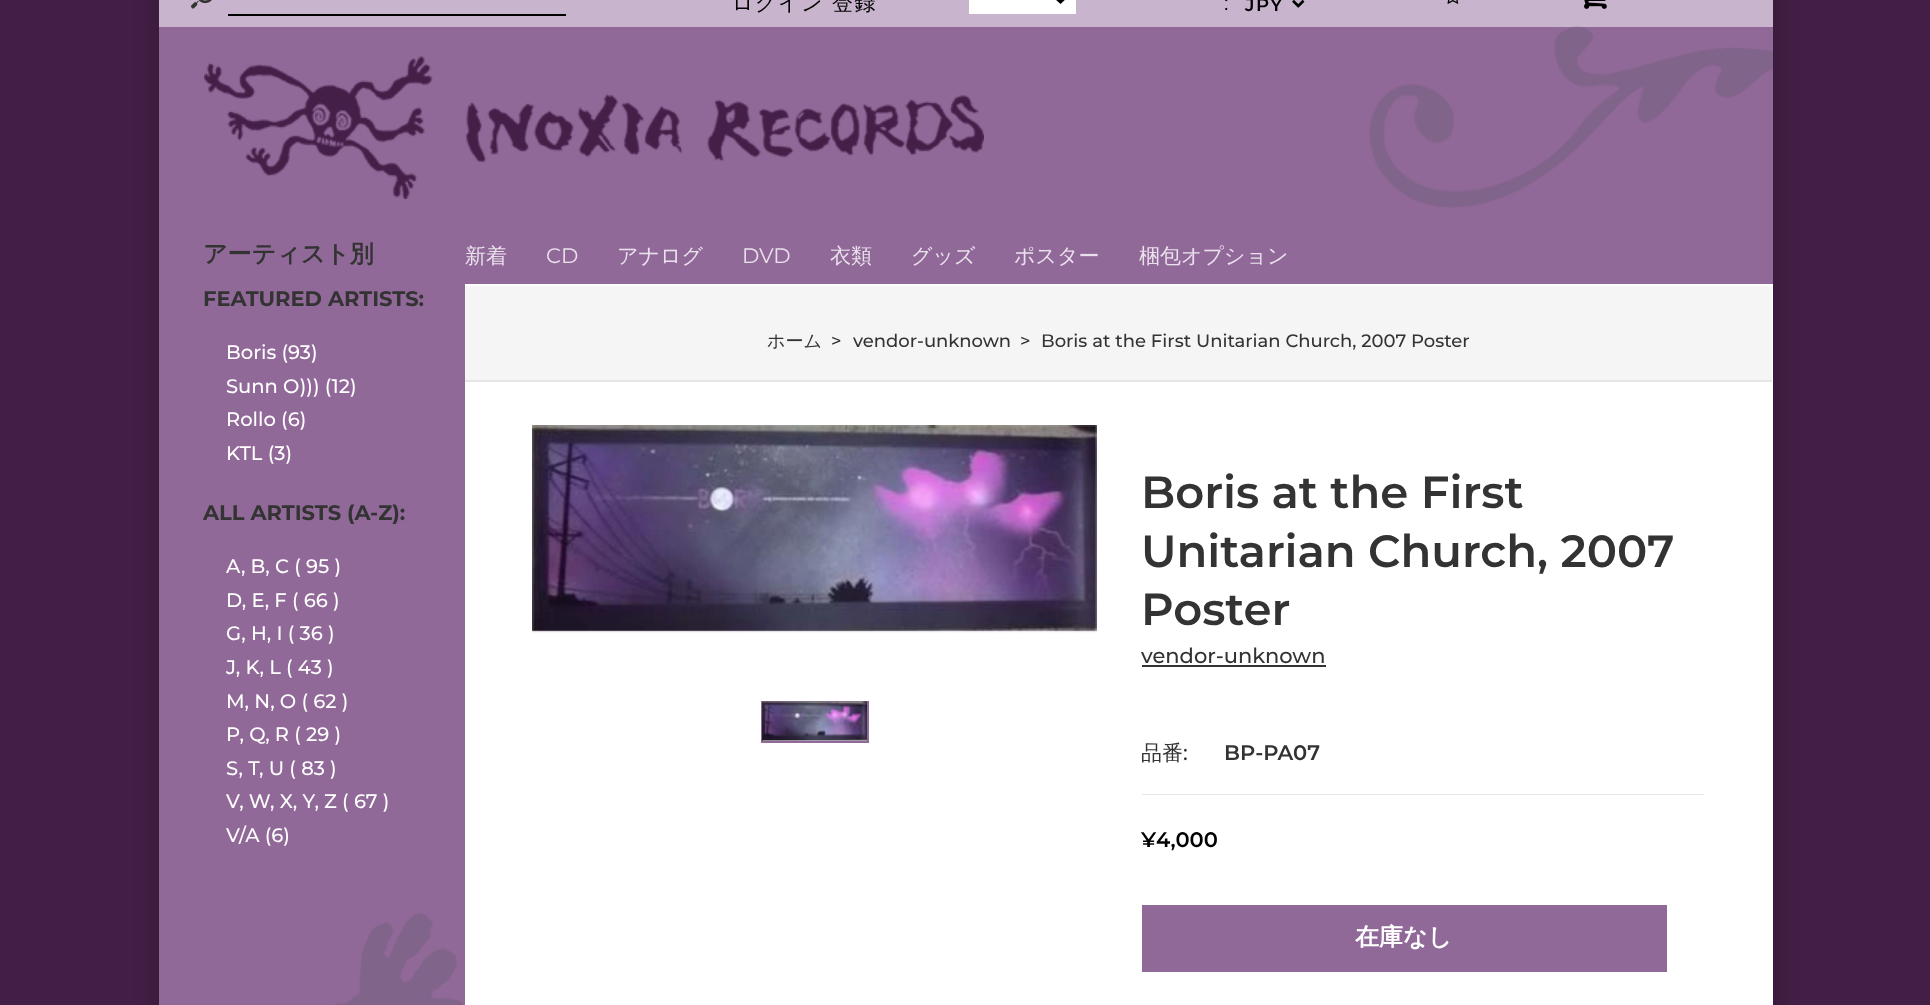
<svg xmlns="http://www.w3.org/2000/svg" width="1930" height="1005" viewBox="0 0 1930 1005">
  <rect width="100%" height="100%" fill="#431f46"/>
  <path d="M155 -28h1623v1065H155z" fill="#0000002e" filter="blur(10.5px)"/>
  <path d="M465 284h1308v721H465z" fill="#fff"/>
  <path d="M159 0h1614v27H159z" fill="#c8b4cc"/>
  <image x="191" y="0" width="21" height="9" href="img/1.png"/>
  <path d="M228 14h338v2H228z" fill="#000"/>
  <path d="M969 0h107v14H969z" fill="#fff"/>
  <path d="M1053-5L1060.5 2L1068-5" fill="none" stroke="#000" stroke-width="3"/>
  <image x="1292" y="0" width="13" height="8" href="img/2.png"/>
  <image x="1447" y="0" width="12" height="4" href="img/3.png"/>
  <image x="1584" y="0" width="23" height="9" href="img/4.png"/>
  <path d="M159 209h306v796H159z" fill="#916999"/>
  <path d="M159 27h1614v182H159z" fill="#916999"/>
  <image x="1369" y="26" width="404" height="182" href="img/5.png"/>
  <image x="204" y="56" width="780" height="143" href="img/6.png"/>
  <image x="334" y="913" width="130" height="92" href="img/7.png"/>
  <path d="M465 209h1308v75H465z" fill="#916999"/>
  <path d="M465 286h1307v94H465z" fill="#f5f5f5"/>
  <path d="M465 380h1307v2H465z" fill="#e5e5e5"/>
  <image x="532" y="425" width="565" height="208" href="img/8.png"/>
  <path d="M762 702h106v40H762z" fill="none" stroke="#916999" stroke-width="2"/>
  <image x="762" y="701" width="105" height="40" href="img/9.png"/>
  <path d="M1142 665h184v2H1142z" fill="#333"/>
  <path d="M1142 794h562v1H1142z" fill="#e5e5e5"/>
  <path d="M1142 905h525v67H1142z" fill="#916999"/>
  <g font-family="WenQuanYi Zen Hei" font-size="21" font-weight="500" letter-spacing="1.5" fill="#000">
    <text x="732" y="10">ログイン</text>
    <text x="832" y="10">登録</text>
  </g>
  <text x="1224" y="10" font-family="Montserrat" font-size="21" letter-spacing="1.5" fill="#000">:</text>
  <text x="1245" y="11" font-family="Montserrat" font-size="18" font-weight="600" letter-spacing="1.5" fill="#000">JPY</text>
  <text x="203" y="262" font-family="WenQuanYi Zen Hei" font-size="24" font-weight="bold" fill="#333">アーティスト別</text>
  <text x="203" y="306" font-family="Montserrat" font-size="21" font-weight="bold" fill="#333">FEATURED ARTISTS:</text>
  <g font-family="Montserrat" font-size="19.5" font-weight="500" fill="#fff">
    <text x="226" y="359">Boris (93)</text>
    <text x="226" y="393">Sunn O))) (12)</text>
    <text x="226" y="426">Rollo (6)</text>
    <text x="226" y="460">KTL (3)</text>
  </g>
  <text x="203" y="520" font-family="Montserrat" font-size="21" font-weight="bold" fill="#333">ALL ARTISTS (A-Z):</text>
  <g font-family="Montserrat" font-size="19.5" font-weight="500" fill="#fff">
    <text x="226" y="573">A, B, C ( 95 )</text>
    <text x="226" y="607">D, E, F ( 66 )</text>
    <text x="226" y="640">G, H, I ( 36 )</text>
    <text x="226" y="674">J, K, L ( 43 )</text>
    <text x="226" y="708">M, N, O ( 62 )</text>
    <text x="226" y="741">P, Q, R ( 29 )</text>
    <text x="226" y="775">S, T, U ( 83 )</text>
    <text x="226" y="808">V, W, X, Y, Z ( 67 )</text>
    <text x="226" y="842">V/A (6)</text>
  </g>
  <text x="465" y="263" font-family="WenQuanYi Zen Hei" font-size="21" font-weight="500" fill="#e9e1eb">新着</text>
  <text x="546" y="263" font-family="Montserrat" font-size="21" fill="#e9e1eb">CD</text>
  <text x="617" y="263" font-family="WenQuanYi Zen Hei" font-size="21" font-weight="500" fill="#e9e1eb">アナログ</text>
  <text x="742" y="263" font-family="Montserrat" font-size="21" fill="#e9e1eb">DVD</text>
  <g font-family="WenQuanYi Zen Hei" font-size="21" font-weight="500" fill="#e9e1eb">
    <text x="830" y="263">衣類</text>
    <text x="911" y="263">グッズ</text>
    <text x="1014" y="263">ポスター</text>
    <text x="1139" y="263">梱包オプション</text>
  </g>
  <text x="767" y="347" font-family="WenQuanYi Zen Hei" font-size="18" font-weight="500" fill="#333">ホーム</text>
  <g font-family="Montserrat" font-size="18" font-weight="500" fill="#333">
    <text x="831" y="347">&gt;</text>
    <text x="853" y="347">vendor-unknown</text>
    <text x="1020" y="347">&gt;</text>
    <text x="1041" y="347">Boris at the First Unitarian Church, 2007 Poster</text>
  </g>
  <g font-family="Montserrat" font-size="45" font-weight="600" fill="#333">
    <text x="1141" y="508">Boris at the First</text>
    <text x="1141" y="567">Unitarian Church, 2007</text>
    <text x="1141" y="625">Poster</text>
  </g>
  <text x="1141" y="663" font-family="Montserrat" font-size="21" font-weight="500" fill="#333">vendor-unknown</text>
  <text x="1141" y="760" font-family="WenQuanYi Zen Hei" font-size="21" font-weight="500" fill="#333">品番</text>
  <text x="1183" y="760" font-family="Montserrat" font-size="21" font-weight="500" fill="#333">:</text>
  <text x="1224" y="760" font-family="Montserrat" font-size="21" font-weight="600" fill="#333">BP-PA07</text>
  <text x="1141" y="847" font-family="Montserrat" font-size="21" font-weight="600" fill="#000">¥4,000</text>
  <text x="1355" y="945" font-family="WenQuanYi Zen Hei" font-size="24" font-weight="bold" fill="#fff">在庫なし</text>
</svg>
